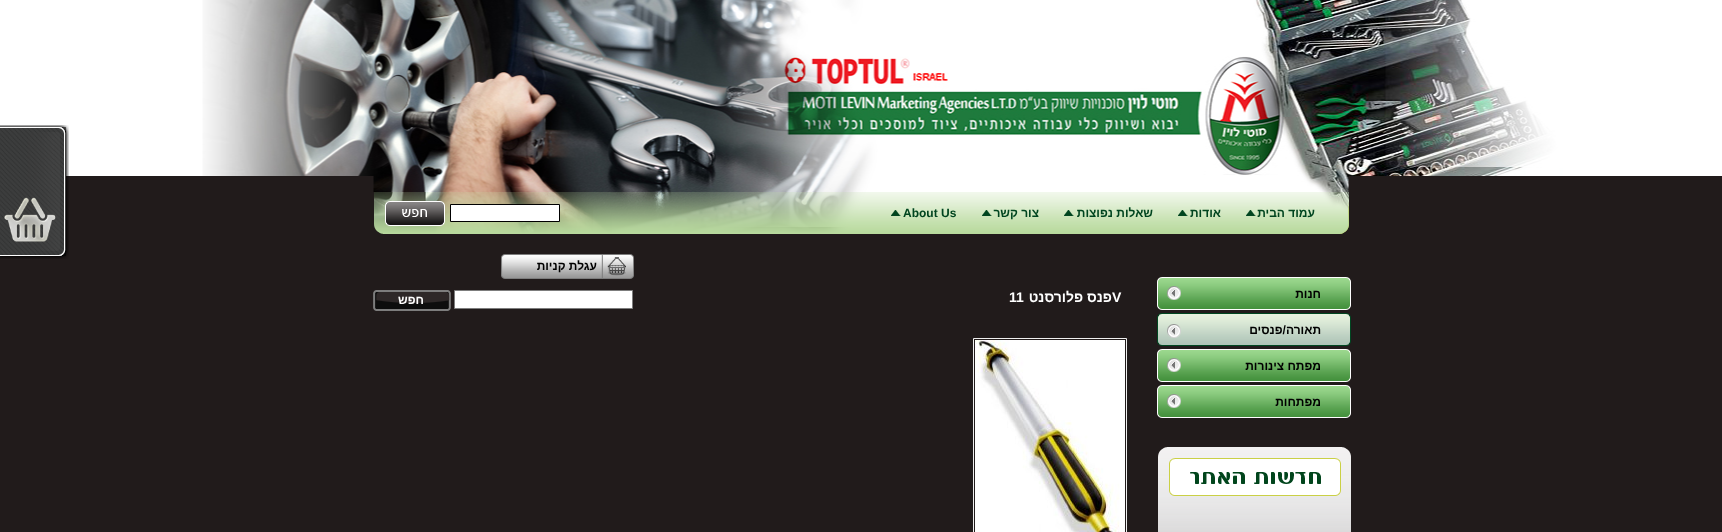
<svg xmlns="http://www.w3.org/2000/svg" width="1722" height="532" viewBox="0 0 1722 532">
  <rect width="100%" height="100%" fill="#211b1b"/>
  <image x="0" y="0" width="1722" height="192" href="img/1.png"/>
  <image x="0" y="125" width="69" height="134" href="img/2.png"/>
  <image x="636" y="192" width="713" height="42" href="img/3.png"/>
  <image x="1246" y="210" width="10" height="6" href="img/4.png"/>
  <image x="1178" y="210" width="10" height="6" href="img/4.png"/>
  <image x="1064" y="210" width="10" height="6" href="img/4.png"/>
  <image x="982" y="210" width="10" height="6" href="img/4.png"/>
  <image x="891" y="210" width="10" height="6" href="img/4.png"/>
  <image x="374" y="192" width="262" height="42" href="img/5.png"/>
  <path d="M450.5 204.5h109v17H450.5z" fill="#fff" stroke="#000"/>
  <image x="385" y="201" width="60" height="25" href="img/6.png"/>
  <image x="501" y="254" width="133" height="25" href="img/7.png"/>
  <path d="M454.5 290.5h178v18H454.5z" fill="#fff" stroke="#7d7d7d"/>
  <image x="373" y="290" width="78" height="21" href="img/8.png"/>
  <path d="M973.5 338.5h153v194H973.5z" fill="none" stroke="#f0f0f0"/>
  <image x="975" y="340" width="150" height="192" href="img/9.png"/>
  <image x="1157" y="277" width="194" height="33" href="img/10.png"/>
  <image x="1157" y="313" width="194" height="33" href="img/11.png"/>
  <image x="1157" y="349" width="194" height="33" href="img/10.png"/>
  <image x="1157" y="385" width="194" height="33" href="img/10.png"/>
  <image x="1158" y="447" width="193" height="85" href="img/12.png"/>
  <g font-family="Liberation Sans" font-size="12" font-weight="bold" direction="rtl" fill="#00451f">
    <text x="1315" y="217">עמוד הבית</text>
    <text x="1221" y="217">אודות</text>
    <text x="1153" y="217">שאלות נפוצות</text>
    <text x="1039" y="217">צור קשר</text>
  </g>
  <text x="903" y="217" font-family="Liberation Sans" font-size="12" font-weight="bold" fill="#00451f">About Us</text>
  <text x="597" y="270" font-family="Liberation Sans" font-size="12" font-weight="bold" direction="rtl" fill="#000">עגלת קניות</text>
  <text x="1112" y="302" font-family="Liberation Sans" font-size="14" font-weight="bold" fill="#fff">V</text>
  <text x="1112" y="302" font-family="Liberation Sans" font-size="14" font-weight="bold" direction="rtl" fill="#fff">פנס פלורסנט</text>
  <text x="1009" y="302" font-family="Liberation Sans" font-size="14" font-weight="bold" fill="#fff">11</text>
  <text x="424" y="304" font-family="Liberation Sans" font-size="12" font-weight="bold" direction="rtl" fill="#fff">חפש</text>
  <g font-family="Liberation Sans" font-size="12" font-weight="bold" direction="rtl" fill="#000">
    <text x="1321" y="298">חנות</text>
    <text x="1321" y="334">תאורה/פנסים</text>
    <text x="1321" y="370">מפתח צינורות</text>
    <text x="1321" y="406">מפתחות</text>
  </g>
</svg>
